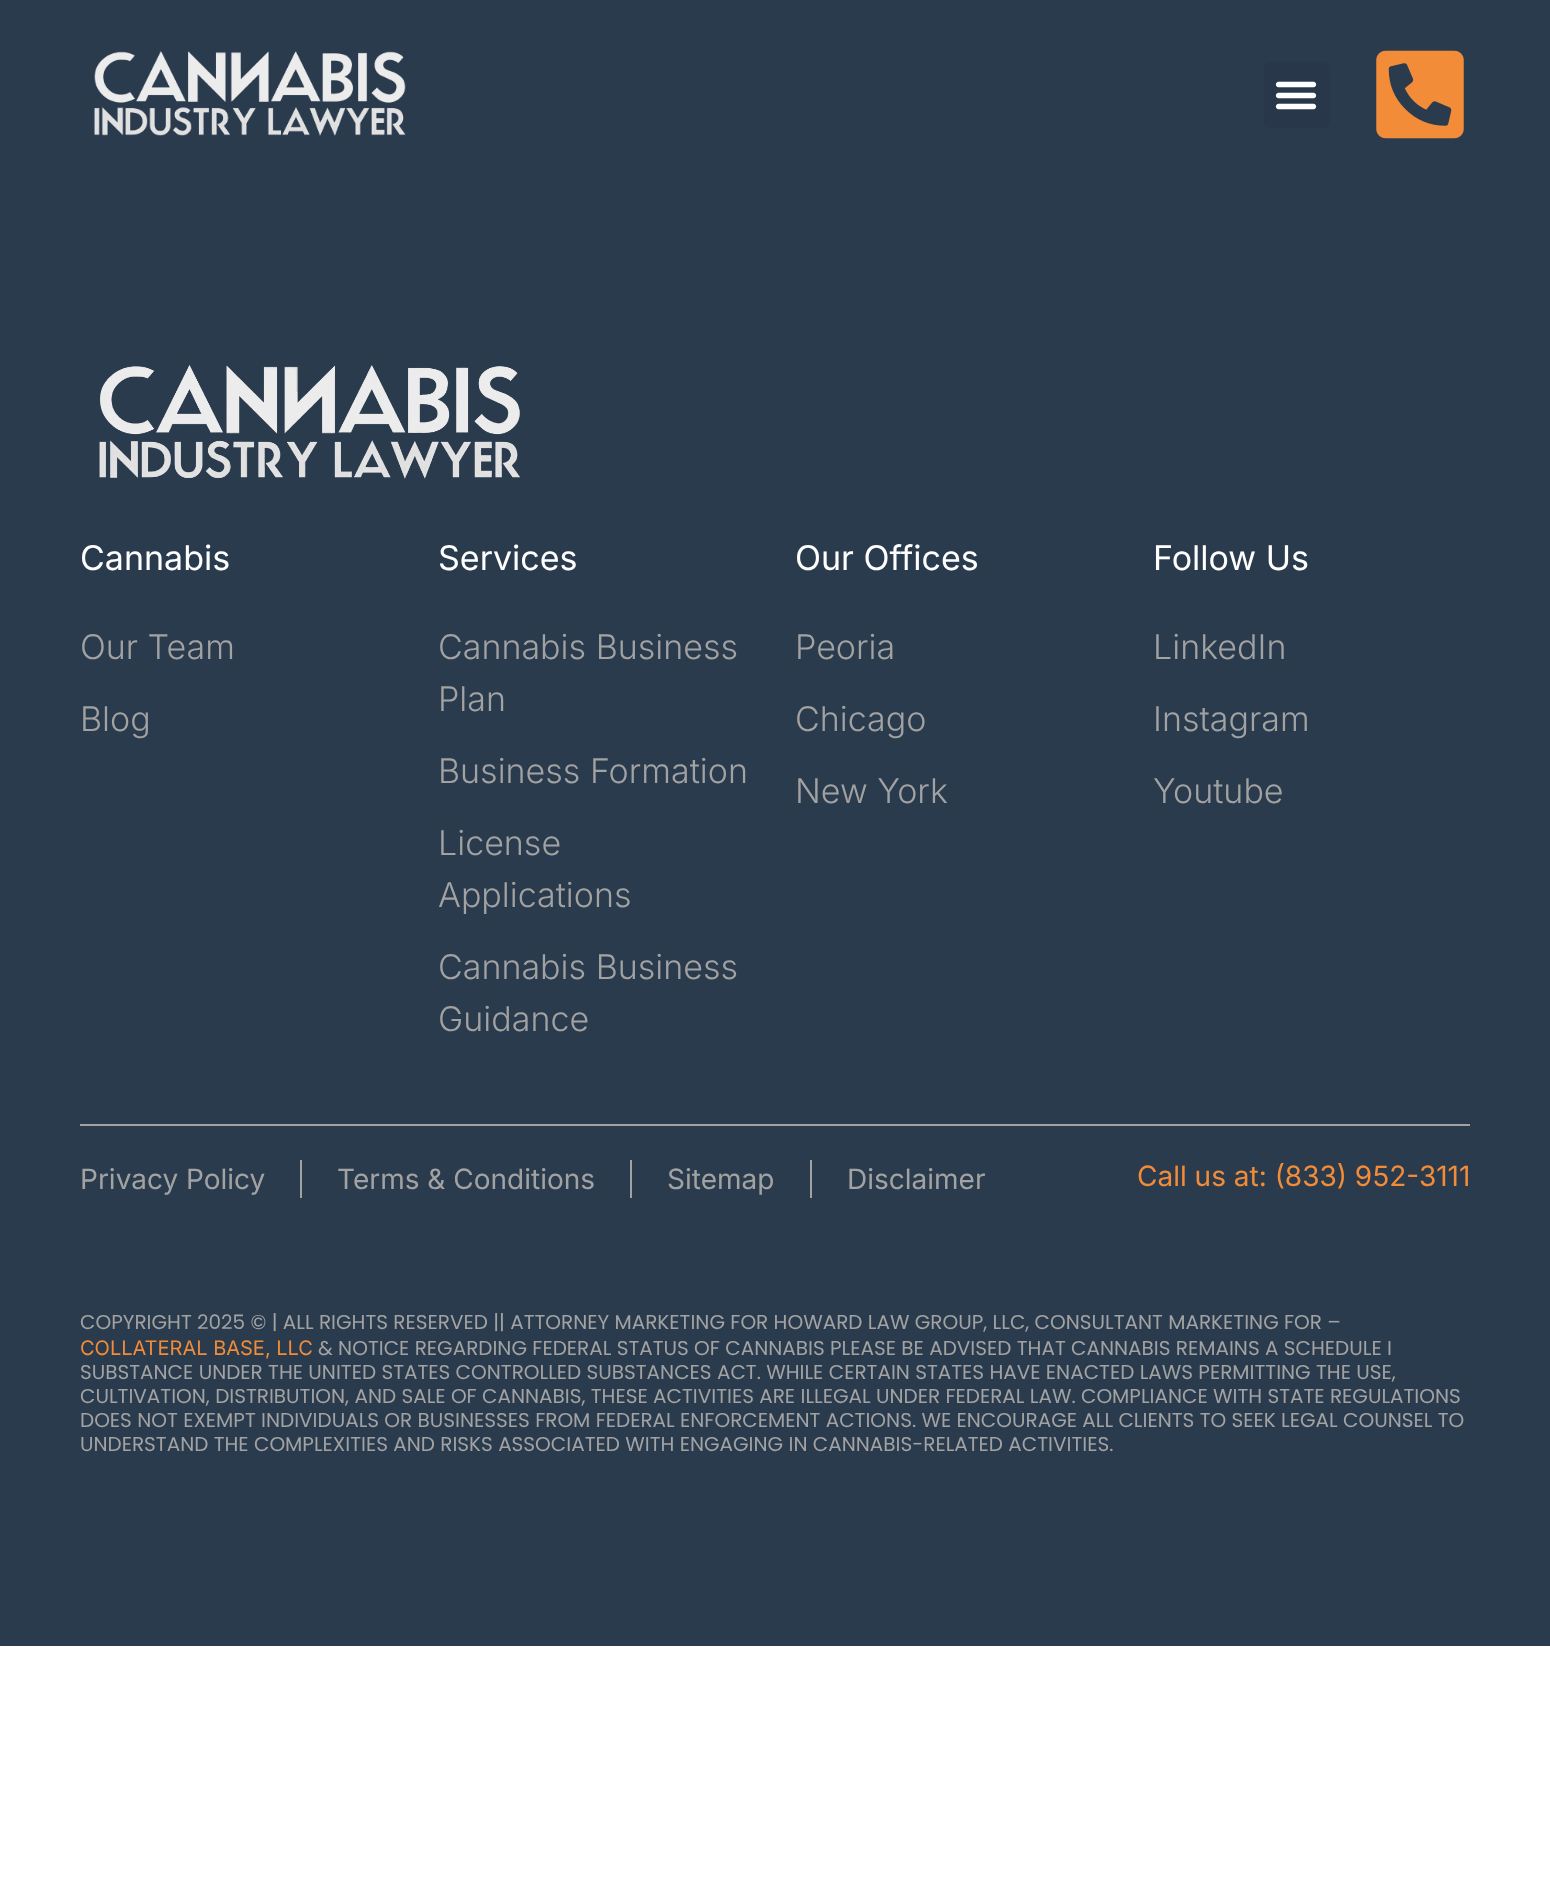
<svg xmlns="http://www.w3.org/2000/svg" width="1550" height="1891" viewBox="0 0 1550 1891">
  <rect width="100%" height="100%" fill="#fff"/>
  <path d="M0 0h1550v1646H0z" fill="#2a3b4e"/>
  <image x="94" y="51" width="312" height="85" href="img/1.png"/>
  <rect x="1264" y="62" width="66" height="66" rx="6" fill="#28384a"/>
  <image x="1275" y="81" width="42" height="29" href="img/2.png"/>
  <image x="1376" y="50" width="88" height="89" href="img/3.png"/>
  <image x="99" y="364" width="421" height="115" href="img/4.png"/>
  <path d="M80 1124h1390v2H80z" fill="#a2a2a2"/>
  <path d="M300 1160h2v38H300z" fill="#a2a2a2"/>
  <path d="M630 1160h2v38H630z" fill="#a2a2a2"/>
  <path d="M810 1160h2v38H810z" fill="#a2a2a2"/>
  <text x="80" y="570" font-family="Inter" font-size="34" fill="#fff">Cannabis</text>
  <g font-family="Inter" font-size="34" font-weight="300" fill="#a2a2a2">
    <text x="80" y="659">Our Team</text>
    <text x="80" y="731">Blog</text>
  </g>
  <text x="438" y="570" font-family="Inter" font-size="34" fill="#fff">Services</text>
  <g font-family="Inter" font-size="34" font-weight="300" fill="#a2a2a2">
    <text x="438" y="659">Cannabis Business</text>
    <text x="438" y="711">Plan</text>
    <text x="438" y="783">Business Formation</text>
    <text x="438" y="855">License</text>
    <text x="438" y="907">Applications</text>
    <text x="438" y="979">Cannabis Business</text>
    <text x="438" y="1031">Guidance</text>
  </g>
  <text x="795" y="570" font-family="Inter" font-size="34" fill="#fff">Our Offices</text>
  <g font-family="Inter" font-size="34" font-weight="300" fill="#a2a2a2">
    <text x="795" y="659">Peoria</text>
    <text x="795" y="731">Chicago</text>
    <text x="795" y="803">New York</text>
  </g>
  <text x="1153" y="570" font-family="Inter" font-size="34" fill="#fff">Follow Us</text>
  <g font-family="Inter" font-size="34" font-weight="300" fill="#a2a2a2">
    <text x="1153" y="659">LinkedIn</text>
    <text x="1153" y="731">Instagram</text>
    <text x="1153" y="803">Youtube</text>
  </g>
  <g font-family="Inter" font-size="28" fill="#a2a2a2">
    <text x="80" y="1189">Privacy Policy</text>
    <text x="337" y="1189">Terms &amp; Conditions</text>
    <text x="667" y="1189">Sitemap</text>
    <text x="847" y="1189">Disclaimer</text>
  </g>
  <text x="1137" y="1186" font-family="Inter" font-size="28" fill="#f28c38">Call us at: (833) 952-3111</text>
  <text x="80" y="1329" font-family="Poppins" font-size="20" fill="#a2a2a2">COPYRIGHT 2025 © | ALL RIGHTS RESERVED || ATTORNEY MARKETING FOR HOWARD LAW GROUP, LLC, CONSULTANT MARKETING FOR –</text>
  <text x="80" y="1355" font-family="Inter" font-size="20" fill="#f28c38">COLLATERAL BASE, LLC</text>
  <g font-family="Poppins" font-size="20" fill="#a2a2a2">
    <text x="318" y="1355">&amp; NOTICE REGARDING FEDERAL STATUS OF CANNABIS PLEASE BE ADVISED THAT CANNABIS REMAINS A SCHEDULE I</text>
    <text x="80" y="1379">SUBSTANCE UNDER THE UNITED STATES CONTROLLED SUBSTANCES ACT. WHILE CERTAIN STATES HAVE ENACTED LAWS PERMITTING THE USE,</text>
    <text x="80" y="1403">CULTIVATION, DISTRIBUTION, AND SALE OF CANNABIS, THESE ACTIVITIES ARE ILLEGAL UNDER FEDERAL LAW. COMPLIANCE WITH STATE REGULATIONS</text>
    <text x="80" y="1427">DOES NOT EXEMPT INDIVIDUALS OR BUSINESSES FROM FEDERAL ENFORCEMENT ACTIONS. WE ENCOURAGE ALL CLIENTS TO SEEK LEGAL COUNSEL TO</text>
    <text x="80" y="1451">UNDERSTAND THE COMPLEXITIES AND RISKS ASSOCIATED WITH ENGAGING IN CANNABIS-RELATED ACTIVITIES.</text>
  </g>
</svg>
